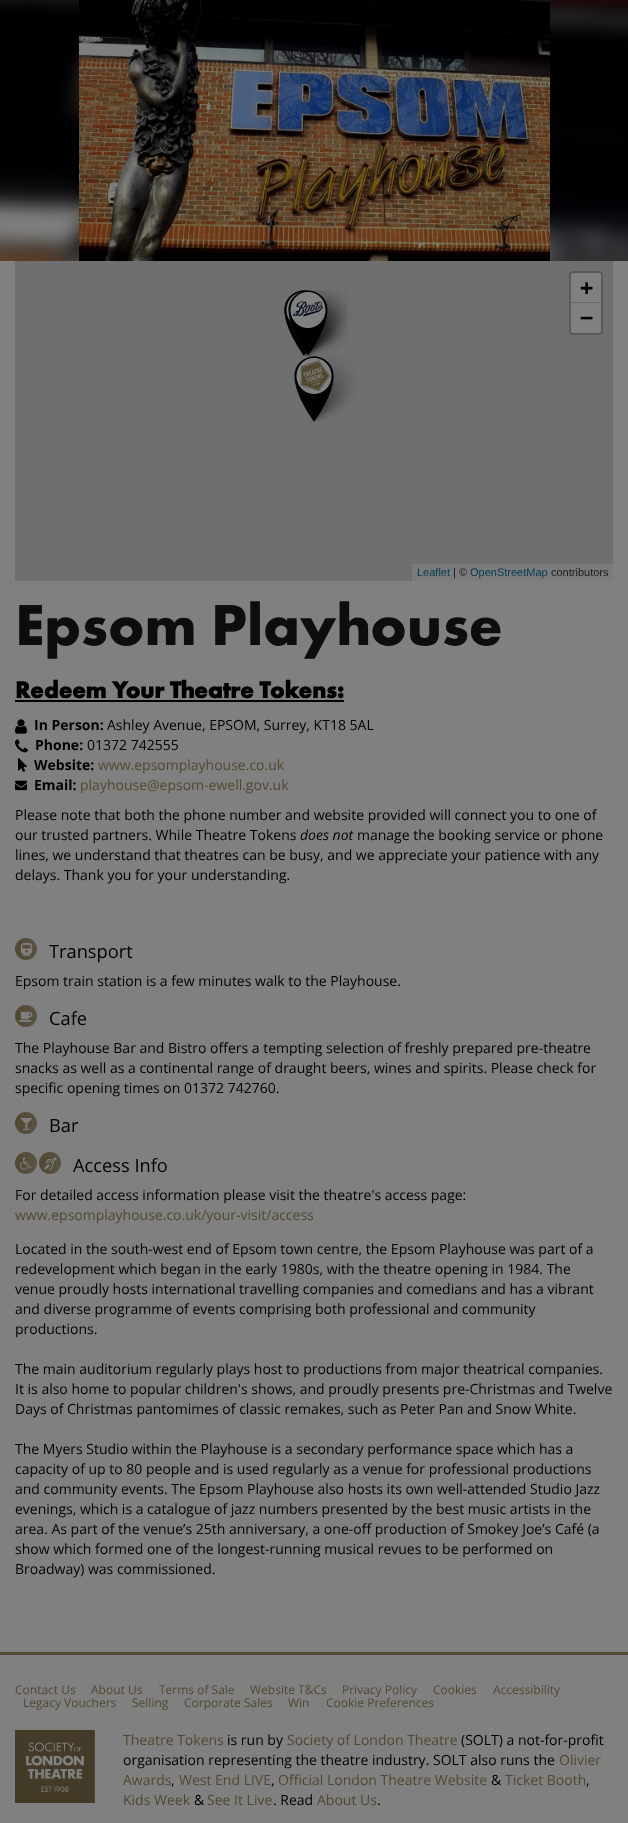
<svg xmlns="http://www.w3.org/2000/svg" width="628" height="1823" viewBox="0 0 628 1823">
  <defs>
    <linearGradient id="g1" gradientUnits="userSpaceOnUse" x1="15" y1="949" x2="37" y2="949"><stop offset="0" stop-color="#514831"/><stop offset="1" stop-color="#595342"/></linearGradient>
    <linearGradient id="g2" gradientUnits="userSpaceOnUse" x1="15" y1="1016" x2="37" y2="1016"><stop offset="0" stop-color="#514831"/><stop offset="1" stop-color="#595342"/></linearGradient>
    <linearGradient id="g3" gradientUnits="userSpaceOnUse" x1="15" y1="1123" x2="37" y2="1123"><stop offset="0" stop-color="#514831"/><stop offset="1" stop-color="#595342"/></linearGradient>
    <linearGradient id="g4" gradientUnits="userSpaceOnUse" x1="15" y1="1163" x2="37" y2="1163"><stop offset="0" stop-color="#514831"/><stop offset="1" stop-color="#595342"/></linearGradient>
    <linearGradient id="g5" gradientUnits="userSpaceOnUse" x1="39" y1="1163" x2="61" y2="1163"><stop offset="0" stop-color="#514831"/><stop offset="1" stop-color="#595342"/></linearGradient>
  </defs>
  <rect width="100%" height="100%" fill="#808080"/>
  <image x="0" y="0" width="628" height="261" href="img/1.png"/>
  <image x="79" y="0" width="471" height="261" href="img/2.png"/>
  <path d="M15 261h598v320H15z" fill="#6f6f6f"/>
  <image x="300" y="290" width="47" height="66" href="img/7.png"/>
  <image x="300" y="290" width="47" height="66" href="img/8.png"/>
  <image x="305" y="290" width="46" height="66" href="img/9.png"/>
  <image x="284" y="290" width="25" height="66" href="img/3.png"/>
  <image x="284" y="290" width="25" height="66" href="img/4.png"/>
  <image x="288" y="290" width="40" height="66" href="img/5.png"/>
  <image x="310" y="356" width="47" height="66" href="img/10.png"/>
  <image x="294" y="356" width="40" height="66" href="img/6.png"/>
  <rect x="570" y="272" width="32" height="62" rx="3" fill="none" stroke="#595959" stroke-width="2"/>
  <path d="M573 273H599C600 273 601 274 601 275V303H571V275C571 274 572 273 573 273Z" fill="#808080"/>
  <path d="M571 302h30v1H571z" fill="#666"/>
  <path d="M571 303H601V331C601 332 600 333 599 333H573C572 333 571 332 571 331Z" fill="#808080"/>
  <path d="M412 564h201v17H412z" fill="#7b7b7b"/>
  <path d="M15 700h329v2H15z" fill="#000"/>
  <image x="15" y="719" width="12" height="15" href="img/11.png"/>
  <image x="15" y="739" width="13" height="14" href="img/12.png"/>
  <image x="18" y="758" width="9" height="14" href="img/13.png"/>
  <image x="15" y="780" width="12" height="11" href="img/14.png"/>
  <circle cx="26" cy="949" r="11" fill="url(#g1)"/>
  <image x="21" y="943" width="11" height="13" href="img/15.png"/>
  <circle cx="26" cy="1016" r="11" fill="url(#g2)"/>
  <image x="19" y="1011" width="14" height="11" href="img/16.png"/>
  <circle cx="26" cy="1123" r="11" fill="url(#g3)"/>
  <image x="20" y="1118" width="12" height="12" href="img/17.png"/>
  <circle cx="26" cy="1163" r="11" fill="url(#g4)"/>
  <image x="20" y="1157" width="12" height="13" href="img/18.png"/>
  <circle cx="50" cy="1163" r="11" fill="url(#g5)"/>
  <image x="44" y="1157" width="13" height="13" href="img/19.png"/>
  <path d="M0 1652h628v3H0z" fill="#514831"/>
  <image x="15" y="1730" width="80" height="73" href="img/20.png"/>
  <g font-family="DejaVu Sans Mono" font-size="22" font-weight="bold" fill="#000">
    <text x="580" y="295">+</text>
    <text x="580" y="325">−</text>
  </g>
  <text x="417" y="576" font-family="Liberation Sans" font-size="11" fill="#003c54">Leaflet</text>
  <text x="453" y="576" font-family="Liberation Sans" font-size="11" fill="#1a1a1a">| ©</text>
  <text x="470" y="576" font-family="Liberation Sans" font-size="11" fill="#003c54">OpenStreetMap</text>
  <text x="551" y="576" font-family="Liberation Sans" font-size="11" fill="#1a1a1a">contributors</text>
  <text x="15" y="645" font-family="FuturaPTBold" font-size="60" fill="#0d0d0d">Epsom Playhouse</text>
  <text x="15" y="698" font-family="FuturaPTBold" font-size="24" font-weight="bold" fill="#000">Redeem Your Theatre Tokens:</text>
  <text x="34" y="730" font-family="Open Sans" font-size="14" font-weight="bold" fill="#000">In Person:</text>
  <text x="107" y="730" font-family="Open Sans" font-size="14" fill="#000">Ashley Avenue, EPSOM, Surrey, KT18 5AL</text>
  <text x="35" y="750" font-family="Open Sans" font-size="14" font-weight="bold" fill="#000">Phone:</text>
  <text x="87" y="750" font-family="Open Sans" font-size="14" fill="#000">01372 742555</text>
  <text x="34" y="770" font-family="Open Sans" font-size="14" font-weight="bold" fill="#000">Website:</text>
  <text x="98" y="770" font-family="Open Sans" font-size="14" fill="#514831">www.epsomplayhouse.co.uk</text>
  <text x="34" y="790" font-family="Open Sans" font-size="14" font-weight="bold" fill="#000">Email:</text>
  <text x="80" y="790" font-family="Open Sans" font-size="14" fill="#514831">playhouse@epsom-ewell.gov.uk</text>
  <g font-family="Open Sans" font-size="14" fill="#000">
    <text x="15" y="820">Please note that both the phone number and website provided will connect you to one of</text>
    <text x="15" y="840">our trusted partners. While Theatre Tokens</text>
  </g>
  <text x="300" y="840" font-family="Open Sans" font-size="14" font-style="italic" fill="#000">does not</text>
  <g font-family="Open Sans" font-size="14" fill="#000">
    <text x="357" y="840">manage the booking service or phone</text>
    <text x="15" y="860">lines, we understand that theatres can be busy, and we appreciate your patience with any</text>
    <text x="15" y="880">delays. Thank you for your understanding.</text>
  </g>
  <text x="49" y="958" font-family="Open Sans" font-size="18.25" fill="#000">Transport</text>
  <text x="15" y="986" font-family="Open Sans" font-size="14" fill="#000">Epsom train station is a few minutes walk to the Playhouse.</text>
  <text x="49" y="1025" font-family="Open Sans" font-size="18.25" fill="#000">Cafe</text>
  <g font-family="Open Sans" font-size="14" fill="#000">
    <text x="15" y="1053">The Playhouse Bar and Bistro offers a tempting selection of freshly prepared pre-theatre</text>
    <text x="15" y="1073">snacks as well as a continental range of draught beers, wines and spirits. Please check for</text>
    <text x="15" y="1093">specific opening times on 01372 742760.</text>
  </g>
  <g font-family="Open Sans" font-size="18.25" fill="#000">
    <text x="49" y="1132">Bar</text>
    <text x="73" y="1172">Access Info</text>
  </g>
  <text x="15" y="1200" font-family="Open Sans" font-size="14" fill="#000">For detailed access information please visit the theatre's access page:</text>
  <text x="15" y="1220" font-family="Open Sans" font-size="14" fill="#514831">www.epsomplayhouse.co.uk/your-visit/access</text>
  <g font-family="Open Sans" font-size="14" fill="#000">
    <text x="15" y="1254">Located in the south-west end of Epsom town centre, the Epsom Playhouse was part of a</text>
    <text x="15" y="1274">redevelopment which began in the early 1980s, with the theatre opening in 1984. The</text>
    <text x="15" y="1294">venue proudly hosts international travelling companies and comedians and has a vibrant</text>
    <text x="15" y="1314">and diverse programme of events comprising both professional and community</text>
    <text x="15" y="1334">productions.</text>
    <text x="15" y="1374">The main auditorium regularly plays host to productions from major theatrical companies.</text>
    <text x="15" y="1394">It is also home to popular children's shows, and proudly presents pre-Christmas and Twelve</text>
    <text x="15" y="1414">Days of Christmas pantomimes of classic remakes, such as Peter Pan and Snow White.</text>
    <text x="15" y="1454">The Myers Studio within the Playhouse is a secondary performance space which has a</text>
    <text x="15" y="1474">capacity of up to 80 people and is used regularly as a venue for professional productions</text>
    <text x="15" y="1494">and community events. The Epsom Playhouse also hosts its own well-attended Studio Jazz</text>
    <text x="15" y="1514">evenings, which is a catalogue of jazz numbers presented by the best music artists in the</text>
    <text x="15" y="1534">area. As part of the venue’s 25th anniversary, a one-off production of Smokey Joe’s Café (a</text>
    <text x="15" y="1554">show which formed one of the longest-running musical revues to be performed on</text>
    <text x="15" y="1574">Broadway) was commissioned.</text>
  </g>
  <g font-family="Open Sans" font-size="12" fill="#514831">
    <text x="15" y="1694">Contact Us</text>
    <text x="91" y="1694">About Us</text>
    <text x="159" y="1694">Terms of Sale</text>
    <text x="250" y="1694">Website T&amp;Cs</text>
    <text x="342" y="1694">Privacy Policy</text>
    <text x="433" y="1694">Cookies</text>
    <text x="493" y="1694">Accessibility</text>
    <text x="23" y="1707">Legacy Vouchers</text>
    <text x="132" y="1707">Selling</text>
    <text x="184" y="1707">Corporate Sales</text>
    <text x="288" y="1707">Win</text>
    <text x="326" y="1707">Cookie Preferences</text>
  </g>
  <text x="123" y="1745" font-family="Open Sans" font-size="14" fill="#514831">Theatre Tokens</text>
  <text x="227" y="1745" font-family="Open Sans" font-size="14" fill="#000">is run by</text>
  <text x="287" y="1745" font-family="Open Sans" font-size="14" fill="#514831">Society of London Theatre</text>
  <g font-family="Open Sans" font-size="14" fill="#000">
    <text x="461" y="1745">(SOLT) a not-for-profit</text>
    <text x="123" y="1765">organisation representing the theatre industry. SOLT also runs the</text>
  </g>
  <g font-family="Open Sans" font-size="14" fill="#514831">
    <text x="559" y="1765">Olivier</text>
    <text x="123" y="1785">Awards</text>
  </g>
  <text x="171" y="1785" font-family="Open Sans" font-size="14" fill="#000">,</text>
  <text x="179" y="1785" font-family="Open Sans" font-size="14" fill="#514831">West End LIVE</text>
  <text x="271" y="1785" font-family="Open Sans" font-size="14" fill="#000">,</text>
  <text x="278" y="1785" font-family="Open Sans" font-size="14" fill="#514831">Official London Theatre Website</text>
  <text x="491" y="1785" font-family="Open Sans" font-size="14" fill="#000">&amp;</text>
  <text x="505" y="1785" font-family="Open Sans" font-size="14" fill="#514831">Ticket Booth</text>
  <text x="586" y="1785" font-family="Open Sans" font-size="14" fill="#000">,</text>
  <text x="123" y="1805" font-family="Open Sans" font-size="14" fill="#514831">Kids Week</text>
  <text x="194" y="1805" font-family="Open Sans" font-size="14" fill="#000">&amp;</text>
  <text x="207" y="1805" font-family="Open Sans" font-size="14" fill="#514831">See It Live</text>
  <text x="273" y="1805" font-family="Open Sans" font-size="14" fill="#000">. Read</text>
  <text x="317" y="1805" font-family="Open Sans" font-size="14" fill="#514831">About Us</text>
  <text x="377" y="1805" font-family="Open Sans" font-size="14" fill="#000">.</text>
</svg>
